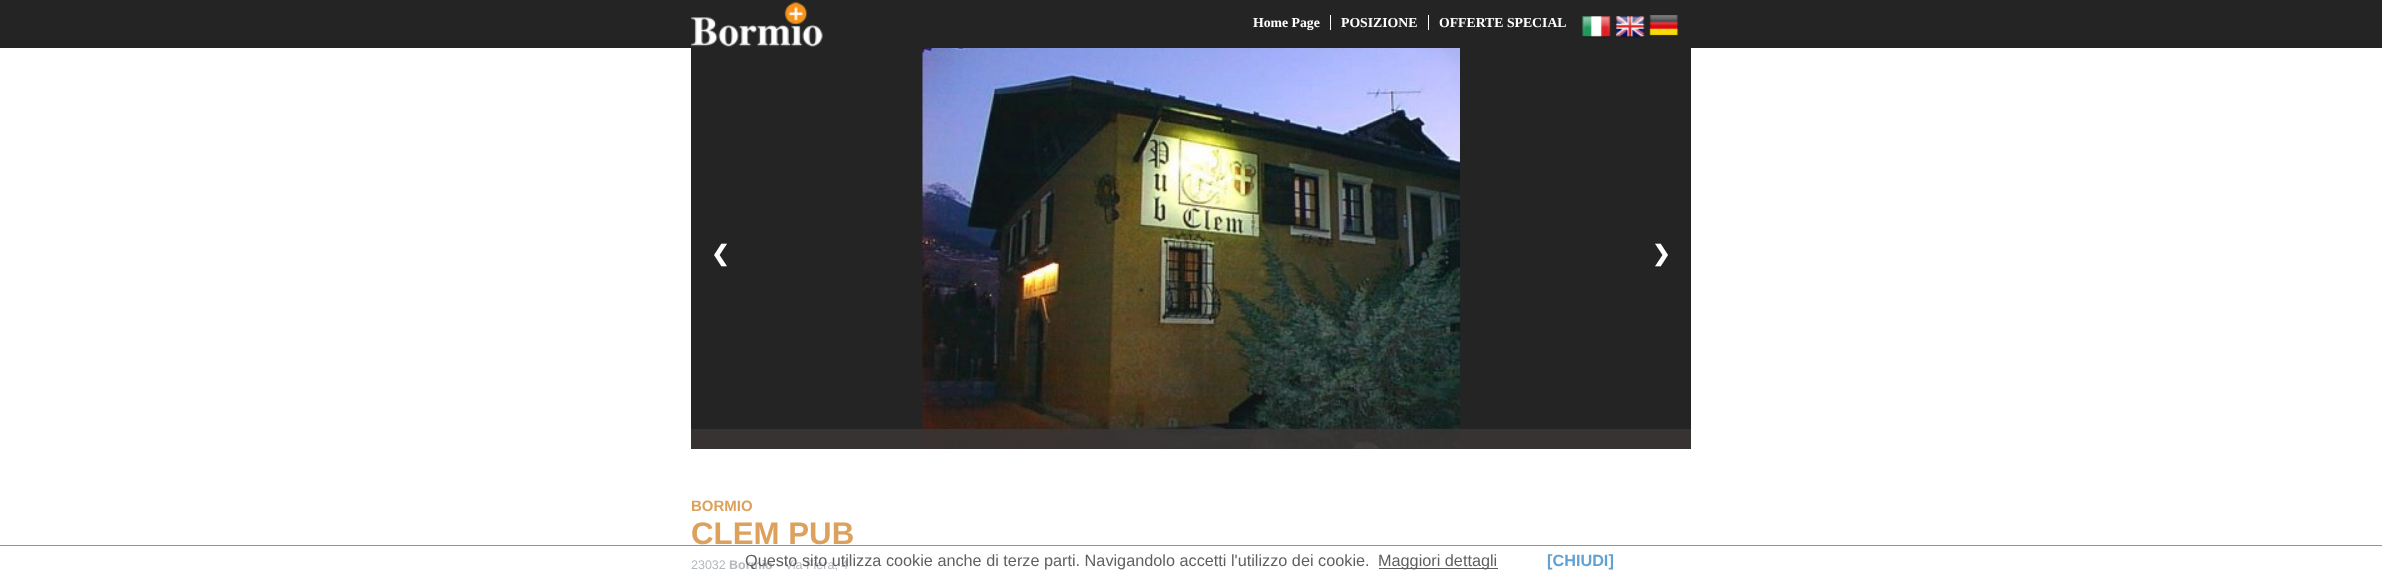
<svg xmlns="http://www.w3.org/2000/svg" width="2382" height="574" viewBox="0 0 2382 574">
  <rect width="100%" height="100%" fill="#fff"/>
  <path d="M0 0h2382v48H0z" fill="#242424"/>
  <image x="691" y="2" width="132" height="45" href="img/1.png"/>
  <path d="M1330 15h1v15H1330z" fill="#fff"/>
  <path d="M1428 15h1v15H1428z" fill="#fff"/>
  <image x="1582" y="16" width="29" height="22" href="img/2.png"/>
  <image x="1615" y="16" width="30" height="22" href="img/3.png"/>
  <image x="1649" y="15" width="30" height="21" href="img/4.png"/>
  <path d="M691 48h1000v401H691z" fill="#242424"/>
  <image x="922" y="48" width="538" height="401" href="img/5.png"/>
  <path d="M691 429h1000v20H691z" fill="#3a3636db"/>
  <path d="M0 545h2382v1H0z" fill="#60a2d3"/>
  <path d="M1379 568h119v1H1379z" fill="#606060"/>
  <g font-family="Liberation Serif" font-size="13.75" font-weight="bold" fill="#fff">
    <text x="1253" y="27">Home Page</text>
    <text x="1341" y="27">POSIZIONE</text>
    <text x="1439" y="27">OFFERTE SPECIAL</text>
  </g>
  <g font-family="DejaVu Sans" font-size="22" font-weight="bold" fill="#fff">
    <text x="711" y="261">❮</text>
    <text x="1652" y="261">❯</text>
  </g>
  <text x="691" y="511" font-family="Liberation Sans" font-size="15" font-weight="bold" fill="#dda15e">BORMIO</text>
  <text x="691" y="544" font-family="Liberation Sans" font-size="31.25" font-weight="bold" fill="#dda15e">CLEM PUB</text>
  <text x="691" y="569" font-family="Liberation Sans" font-size="12.5" fill="#b4b9be">23032</text>
  <text x="729" y="569" font-family="Liberation Sans" font-size="12.5" font-weight="bold" fill="#b4b9be">Bormio</text>
  <text x="777" y="569" font-family="Liberation Sans" font-size="12.5" fill="#b4b9be">- Via Fiera, 4</text>
  <g font-family="Liberation Sans" font-size="16.25" fill="#5f5f5f">
    <text x="745" y="566">Questo sito utilizza cookie anche di terze parti. Navigandolo accetti l'utilizzo dei cookie.</text>
    <text x="1378" y="566">Maggiori dettagli</text>
  </g>
  <text x="1547" y="566" font-family="Liberation Sans" font-size="16.25" font-weight="bold" fill="#60a2d3">[CHIUDI]</text>
</svg>
